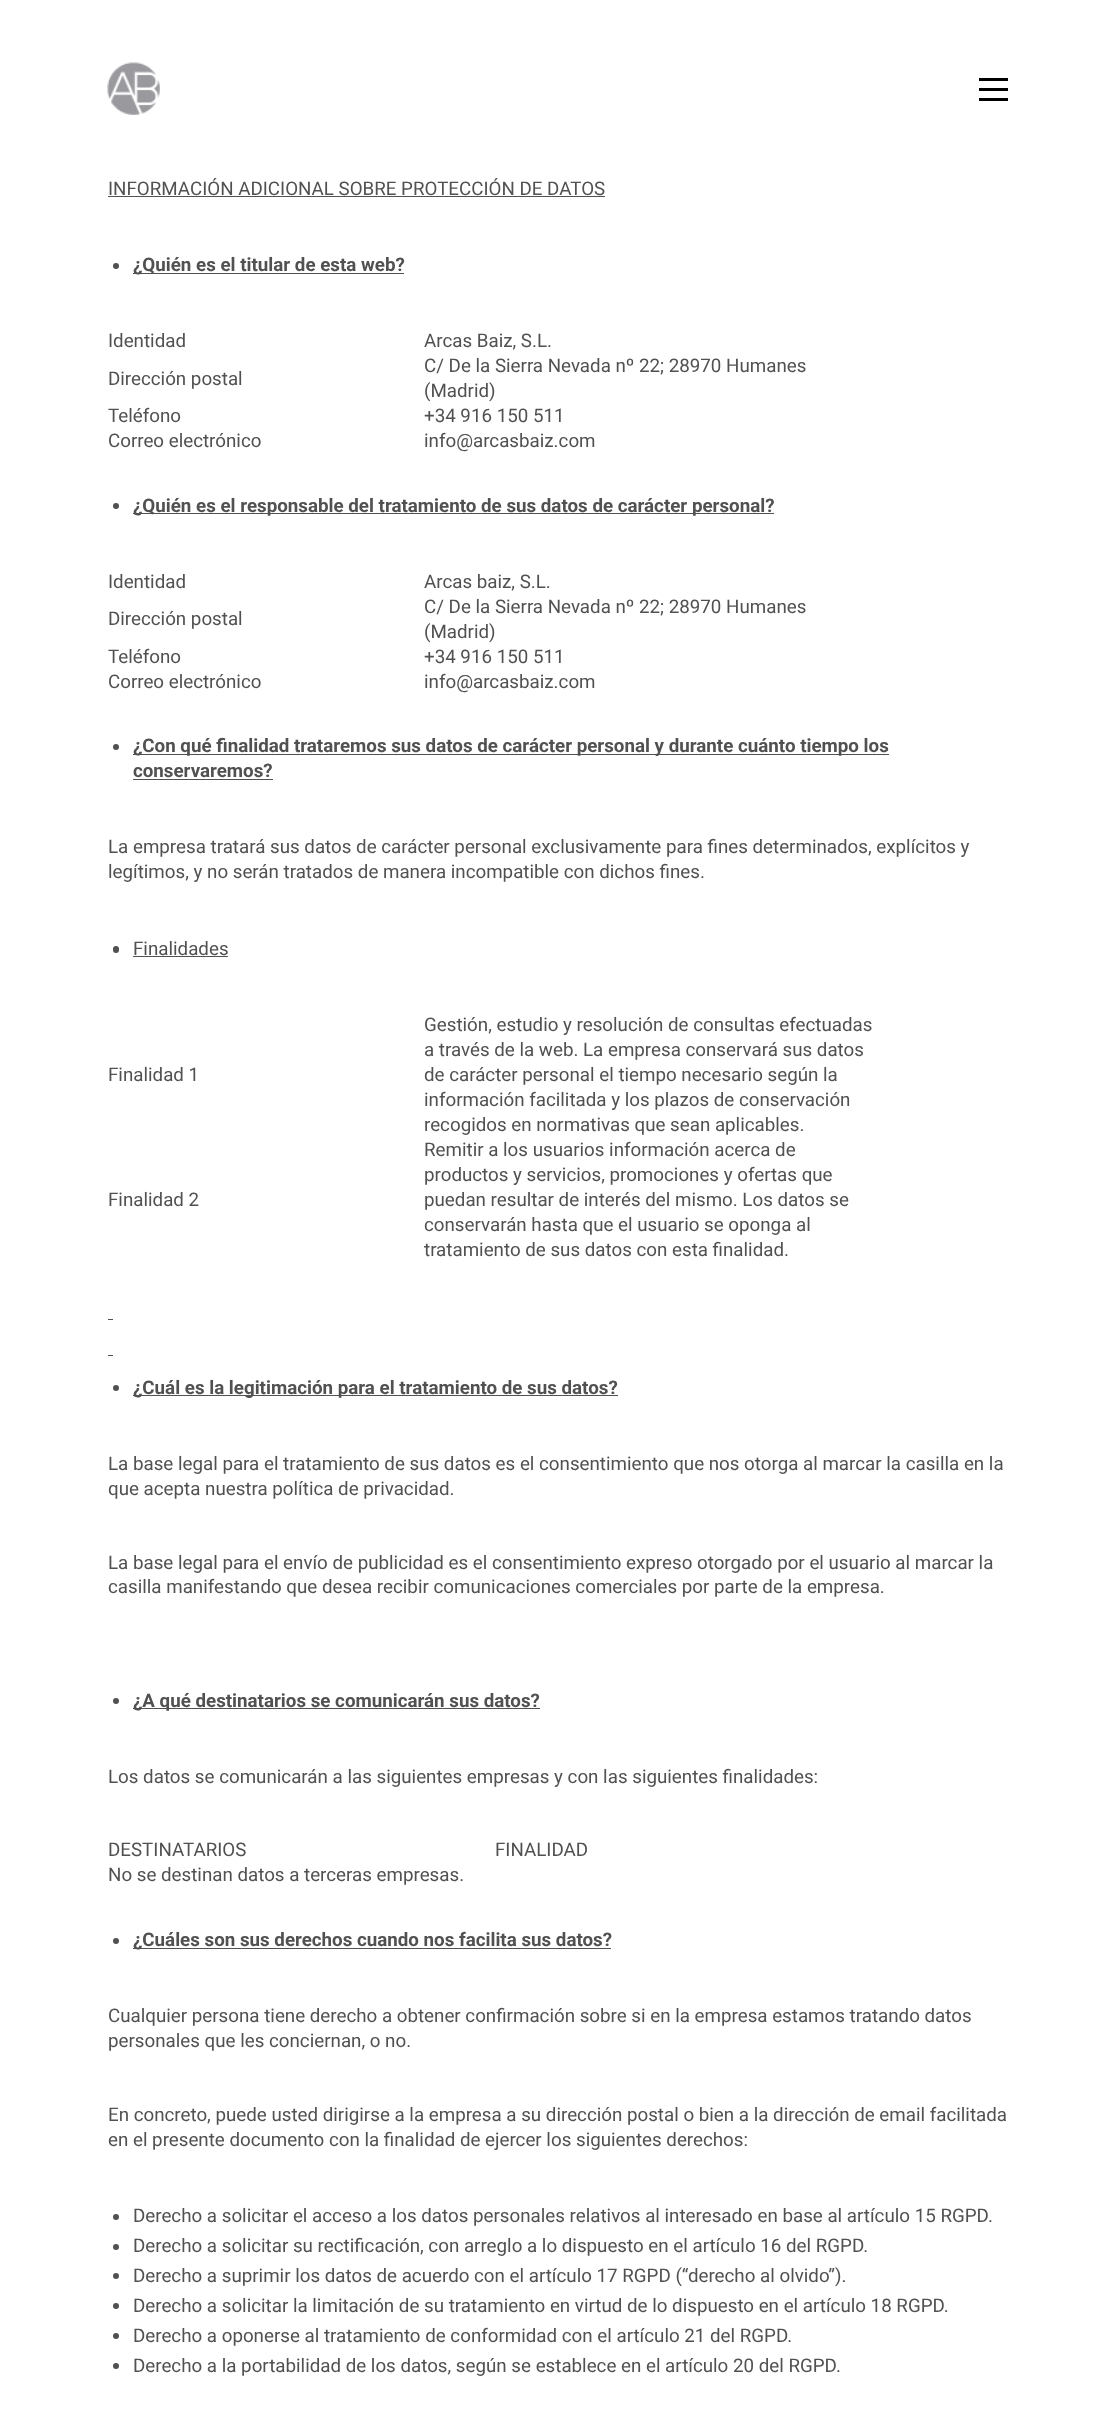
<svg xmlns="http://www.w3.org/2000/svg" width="1115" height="2425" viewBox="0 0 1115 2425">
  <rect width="100%" height="100%" fill="#fff"/>
  <image x="107" y="62" width="53" height="53" href="img/1.png"/>
  <path d="M979 78h29v3H979z" fill="#000"/>
  <path d="M979 88h29v3H979z" fill="#000"/>
  <path d="M979 98h29v3H979z" fill="#000"/>
  <path d="M108 196h497v1H108z" fill="#515151"/>
  <circle cx="116" cy="266" r="3" fill="#515151"/>
  <path d="M133 273h271v1H133z" fill="#515151"/>
  <circle cx="116" cy="506" r="3" fill="#515151"/>
  <path d="M133 513h641v1H133z" fill="#515151"/>
  <circle cx="116" cy="747" r="3" fill="#515151"/>
  <path d="M133 754h756v1H133z" fill="#515151"/>
  <path d="M133 779h140v1H133z" fill="#515151"/>
  <rect x="113" y="946" width="6" height="7" rx="3" fill="#515151"/>
  <path d="M133 956h95v1H133z" fill="#515151"/>
  <path d="M108 1319h5v1H108z" fill="#515151"/>
  <path d="M108 1355h5v1H108z" fill="#515151"/>
  <circle cx="116" cy="1388" r="3" fill="#515151"/>
  <path d="M133 1395h485v1H133z" fill="#515151"/>
  <circle cx="116" cy="1701" r="3" fill="#515151"/>
  <path d="M133 1708h407v1H133z" fill="#515151"/>
  <circle cx="116" cy="1941" r="3" fill="#515151"/>
  <path d="M133 1948h478v1H133z" fill="#515151"/>
  <circle cx="116" cy="2217" r="3" fill="#515151"/>
  <circle cx="116" cy="2247" r="3" fill="#515151"/>
  <circle cx="116" cy="2276" r="3" fill="#515151"/>
  <circle cx="116" cy="2306" r="3" fill="#515151"/>
  <circle cx="116" cy="2336" r="3" fill="#515151"/>
  <circle cx="116" cy="2366" r="3" fill="#515151"/>
  <text x="108" y="195" font-family="Roboto" font-size="18.75" fill="#515151">INFORMACIÓN ADICIONAL SOBRE PROTECCIÓN DE DATOS</text>
  <text x="133" y="271" font-family="Roboto" font-size="18.75" font-weight="bold" fill="#515151">¿Quién es el titular de esta web?</text>
  <g font-family="Roboto" font-size="18.75" fill="#515151">
    <text x="108" y="347">Identidad</text>
    <text x="424" y="347">Arcas Baiz, S.L.</text>
    <text x="108" y="385">Dirección postal</text>
    <text x="424" y="372">C/ De la Sierra Nevada nº 22; 28970 Humanes</text>
    <text x="424" y="397">(Madrid)</text>
    <text x="108" y="422">Teléfono</text>
    <text x="424" y="422">+34 916 150 511</text>
    <text x="108" y="447">Correo electrónico</text>
    <text x="424" y="447">info@arcasbaiz.com</text>
  </g>
  <text x="133" y="512" font-family="Roboto" font-size="18.75" font-weight="bold" fill="#515151">¿Quién es el responsable del tratamiento de sus datos de carácter personal?</text>
  <g font-family="Roboto" font-size="18.75" fill="#515151">
    <text x="108" y="588">Identidad</text>
    <text x="424" y="588">Arcas baiz, S.L.</text>
    <text x="108" y="625">Dirección postal</text>
    <text x="424" y="613">C/ De la Sierra Nevada nº 22; 28970 Humanes</text>
    <text x="424" y="638">(Madrid)</text>
    <text x="108" y="663">Teléfono</text>
    <text x="424" y="663">+34 916 150 511</text>
    <text x="108" y="688">Correo electrónico</text>
    <text x="424" y="688">info@arcasbaiz.com</text>
  </g>
  <g font-family="Roboto" font-size="18.75" font-weight="bold" fill="#515151">
    <text x="133" y="752">¿Con qué finalidad trataremos sus datos de carácter personal y durante cuánto tiempo los</text>
    <text x="133" y="777">conservaremos?</text>
  </g>
  <g font-family="Roboto" font-size="18.75" fill="#515151">
    <text x="108" y="853">La empresa tratará sus datos de carácter personal exclusivamente para fines determinados, explícitos y</text>
    <text x="108" y="878">legítimos, y no serán tratados de manera incompatible con dichos fines.</text>
    <text x="133" y="955">Finalidades</text>
    <text x="108" y="1081">Finalidad 1</text>
    <text x="424" y="1031">Gestión, estudio y resolución de consultas efectuadas</text>
    <text x="424" y="1056">a través de la web. La empresa conservará sus datos</text>
    <text x="424" y="1081">de carácter personal el tiempo necesario según la</text>
    <text x="424" y="1106">información facilitada y los plazos de conservación</text>
    <text x="424" y="1131">recogidos en normativas que sean aplicables.</text>
    <text x="108" y="1206">Finalidad 2</text>
    <text x="424" y="1156">Remitir a los usuarios información acerca de</text>
    <text x="424" y="1181">productos y servicios, promociones y ofertas que</text>
    <text x="424" y="1206">puedan resultar de interés del mismo. Los datos se</text>
    <text x="424" y="1231">conservarán hasta que el usuario se oponga al</text>
    <text x="424" y="1256">tratamiento de sus datos con esta finalidad.</text>
  </g>
  <text x="133" y="1394" font-family="Roboto" font-size="18.75" font-weight="bold" fill="#515151">¿Cuál es la legitimación para el tratamiento de sus datos?</text>
  <g font-family="Roboto" font-size="18.75" fill="#515151">
    <text x="108" y="1470">La base legal para el tratamiento de sus datos es el consentimiento que nos otorga al marcar la casilla en la</text>
    <text x="108" y="1495">que acepta nuestra política de privacidad.</text>
    <text x="108" y="1569">La base legal para el envío de publicidad es el consentimiento expreso otorgado por el usuario al marcar la</text>
    <text x="108" y="1593">casilla manifestando que desea recibir comunicaciones comerciales por parte de la empresa.</text>
  </g>
  <text x="133" y="1707" font-family="Roboto" font-size="18.75" font-weight="bold" fill="#515151">¿A qué destinatarios se comunicarán sus datos?</text>
  <g font-family="Roboto" font-size="18.75" fill="#515151">
    <text x="108" y="1783">Los datos se comunicarán a las siguientes empresas y con las siguientes finalidades:</text>
    <text x="108" y="1856">DESTINATARIOS</text>
    <text x="495" y="1856">FINALIDAD</text>
    <text x="108" y="1881">No se destinan datos a terceras empresas.</text>
  </g>
  <text x="133" y="1946" font-family="Roboto" font-size="18.75" font-weight="bold" fill="#515151">¿Cuáles son sus derechos cuando nos facilita sus datos?</text>
  <g font-family="Roboto" font-size="18.75" fill="#515151">
    <text x="108" y="2022">Cualquier persona tiene derecho a obtener confirmación sobre si en la empresa estamos tratando datos</text>
    <text x="108" y="2047">personales que les conciernan, o no.</text>
    <text x="108" y="2121">En concreto, puede usted dirigirse a la empresa a su dirección postal o bien a la dirección de email facilitada</text>
    <text x="108" y="2146">en el presente documento con la finalidad de ejercer los siguientes derechos:</text>
    <text x="133" y="2222">Derecho a solicitar el acceso a los datos personales relativos al interesado en base al artículo 15 RGPD.</text>
    <text x="133" y="2252">Derecho a solicitar su rectificación, con arreglo a lo dispuesto en el artículo 16 del RGPD.</text>
    <text x="133" y="2282">Derecho a suprimir los datos de acuerdo con el artículo 17 RGPD (“derecho al olvido”).</text>
    <text x="133" y="2312">Derecho a solicitar la limitación de su tratamiento en virtud de lo dispuesto en el artículo 18 RGPD.</text>
    <text x="133" y="2342">Derecho a oponerse al tratamiento de conformidad con el artículo 21 del RGPD.</text>
    <text x="133" y="2372">Derecho a la portabilidad de los datos, según se establece en el artículo 20 del RGPD.</text>
  </g>
</svg>
